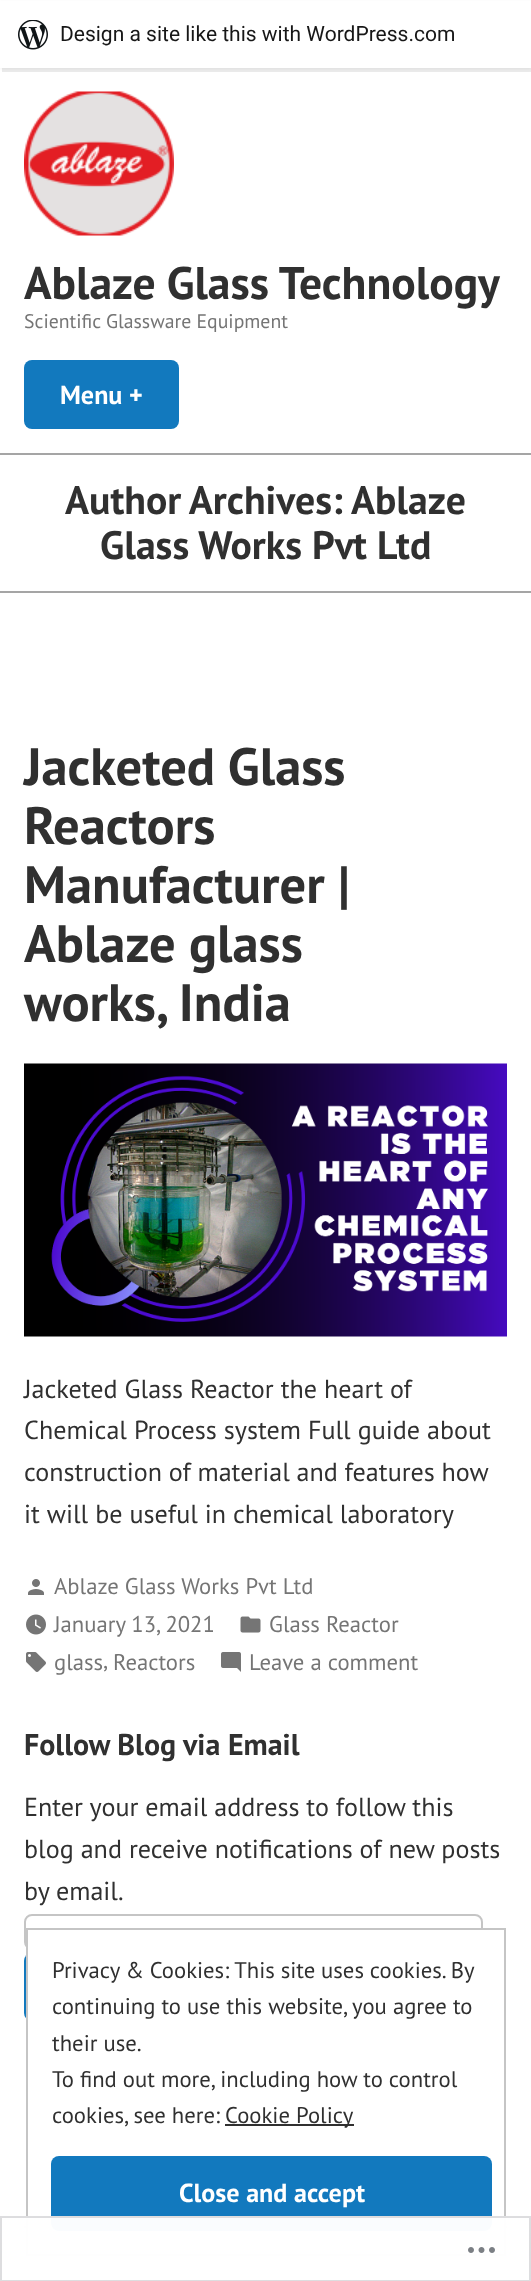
<svg xmlns="http://www.w3.org/2000/svg" width="531" height="2281" viewBox="0 0 531 2281">
  <rect width="100%" height="100%" fill="#fff"/>
  <path d="M0 2h531v67H0z" fill="#0000000d" filter="blur(1.5px)"/>
  <path d="M2 68V72H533V5H531V68Z" fill="#00000014"/>
  <path d="M0 1h531v67H0z" fill="#fff"/>
  <image x="18" y="20" width="30" height="30" href="img/1.png"/>
  <image x="24" y="91" width="150" height="145" href="img/2.png"/>
  <rect x="24" y="360" width="155" height="69" rx="8" fill="#1279be"/>
  <path d="M0 453h531v2H0z" fill="#a5a5a5"/>
  <path d="M0 591h531v2H0z" fill="#a5a5a5"/>
  <image x="24" y="1063" width="483" height="274" href="img/3.png"/>
  <image x="28" y="1579" width="16" height="16" href="img/4.png"/>
  <image x="26" y="1614" width="20" height="21" href="img/5.png"/>
  <image x="240" y="1616" width="21" height="17" href="img/6.png"/>
  <image x="26" y="1652" width="20" height="20" href="img/7.png"/>
  <image x="221" y="1652" width="20" height="20" href="img/8.png"/>
  <rect x="25" y="1915" width="457" height="34" rx="7" fill="none" stroke="#c5c5c5" stroke-width="2"/>
  <rect x="24" y="1953" width="147" height="68" rx="8" fill="#1279be"/>
  <path d="M24 2226h483v2H24z" fill="#c5c5c5"/>
  <path d="M28 1930h476v298H28z" fill="#fff"/>
  <path d="M27 1929h478v326H27z" fill="none" stroke="#c5c5c5" stroke-width="2"/>
  <path d="M225 2124h129v2H225z" fill="#303030"/>
  <rect x="51" y="2156" width="441" height="75" rx="8" fill="#1279be"/>
  <path d="M24 2216h483v40H24z" fill="#fffffffa"/>
  <path d="M1 2217h529v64H1z" fill="none" stroke="#dcdcdefa" stroke-width="2"/>
  <image x="468" y="2247" width="27" height="6" href="img/9.png"/>
  <text x="60" y="41" font-family="Roboto" font-size="21" fill="#171717">Design a site like this with WordPress.com</text>
  <text x="24" y="299" font-family="PT Sans" font-size="45.6" font-weight="bold" fill="#303030">Ablaze Glass Technology</text>
  <text x="24" y="328" font-family="PT Sans" font-size="19.75" fill="#757575">Scientific Glassware Equipment</text>
  <text x="60" y="404" font-family="PT Sans" font-size="26.1" font-weight="bold" fill="#fff">Menu +</text>
  <g font-family="PT Sans" font-size="39.75" font-weight="bold" fill="#303030">
    <text x="65" y="514" word-spacing="-1">Author Archives:</text>
    <text x="351" y="514">Ablaze</text>
    <text x="100" y="559">Glass Works Pvt Ltd</text>
  </g>
  <g font-family="PT Sans" font-size="52.5" font-weight="bold" fill="#303030">
    <text x="24" y="785">Jacketed Glass</text>
    <text x="24" y="844">Reactors</text>
    <text x="24" y="903">Manufacturer |</text>
    <text x="24" y="962">Ablaze glass</text>
    <text x="24" y="1021">works, India</text>
  </g>
  <g font-family="PT Sans" font-size="26.1" fill="#303030">
    <text x="24" y="1398">Jacketed Glass Reactor the heart of</text>
    <text x="24" y="1439">Chemical Process system Full guide about</text>
    <text x="24" y="1481" word-spacing="-0.25">construction of material and features how</text>
    <text x="24" y="1523">it will be useful in chemical laboratory</text>
  </g>
  <g font-family="PT Sans" font-size="22.7" fill="#757575">
    <text x="54" y="1594">Ablaze Glass Works Pvt Ltd</text>
    <text x="54" y="1632">January 13, 2021</text>
    <text x="269" y="1632">Glass Reactor</text>
    <text x="54" y="1670">glass</text>
    <text x="103" y="1668">,</text>
    <text x="113" y="1670">Reactors</text>
    <text x="249" y="1670">Leave a comment</text>
  </g>
  <text x="24" y="1755" font-family="PT Sans" font-size="30" font-weight="bold" fill="#303030">Follow Blog via Email</text>
  <g font-family="PT Sans" font-size="26.1" fill="#303030">
    <text x="24" y="1816">Enter your email address to follow this</text>
    <text x="24" y="1858">blog and receive notifications of new posts</text>
    <text x="24" y="1900">by email.</text>
  </g>
  <g font-family="PT Sans" font-size="22.7" fill="#303030">
    <text x="52" y="1978" word-spacing="-0.25">Privacy &amp; Cookies: This site uses cookies. By</text>
    <text x="52" y="2014">continuing to use this website, you agree to</text>
    <text x="52" y="2051">their use.</text>
    <text x="52" y="2087">To find out more, including how to control</text>
    <text x="52" y="2123">cookies, see here:</text>
    <text x="225" y="2123">Cookie Policy</text>
  </g>
  <text x="179" y="2202" font-family="PT Sans" font-size="26.1" font-weight="bold" fill="#fff">Close and accept</text>
</svg>
